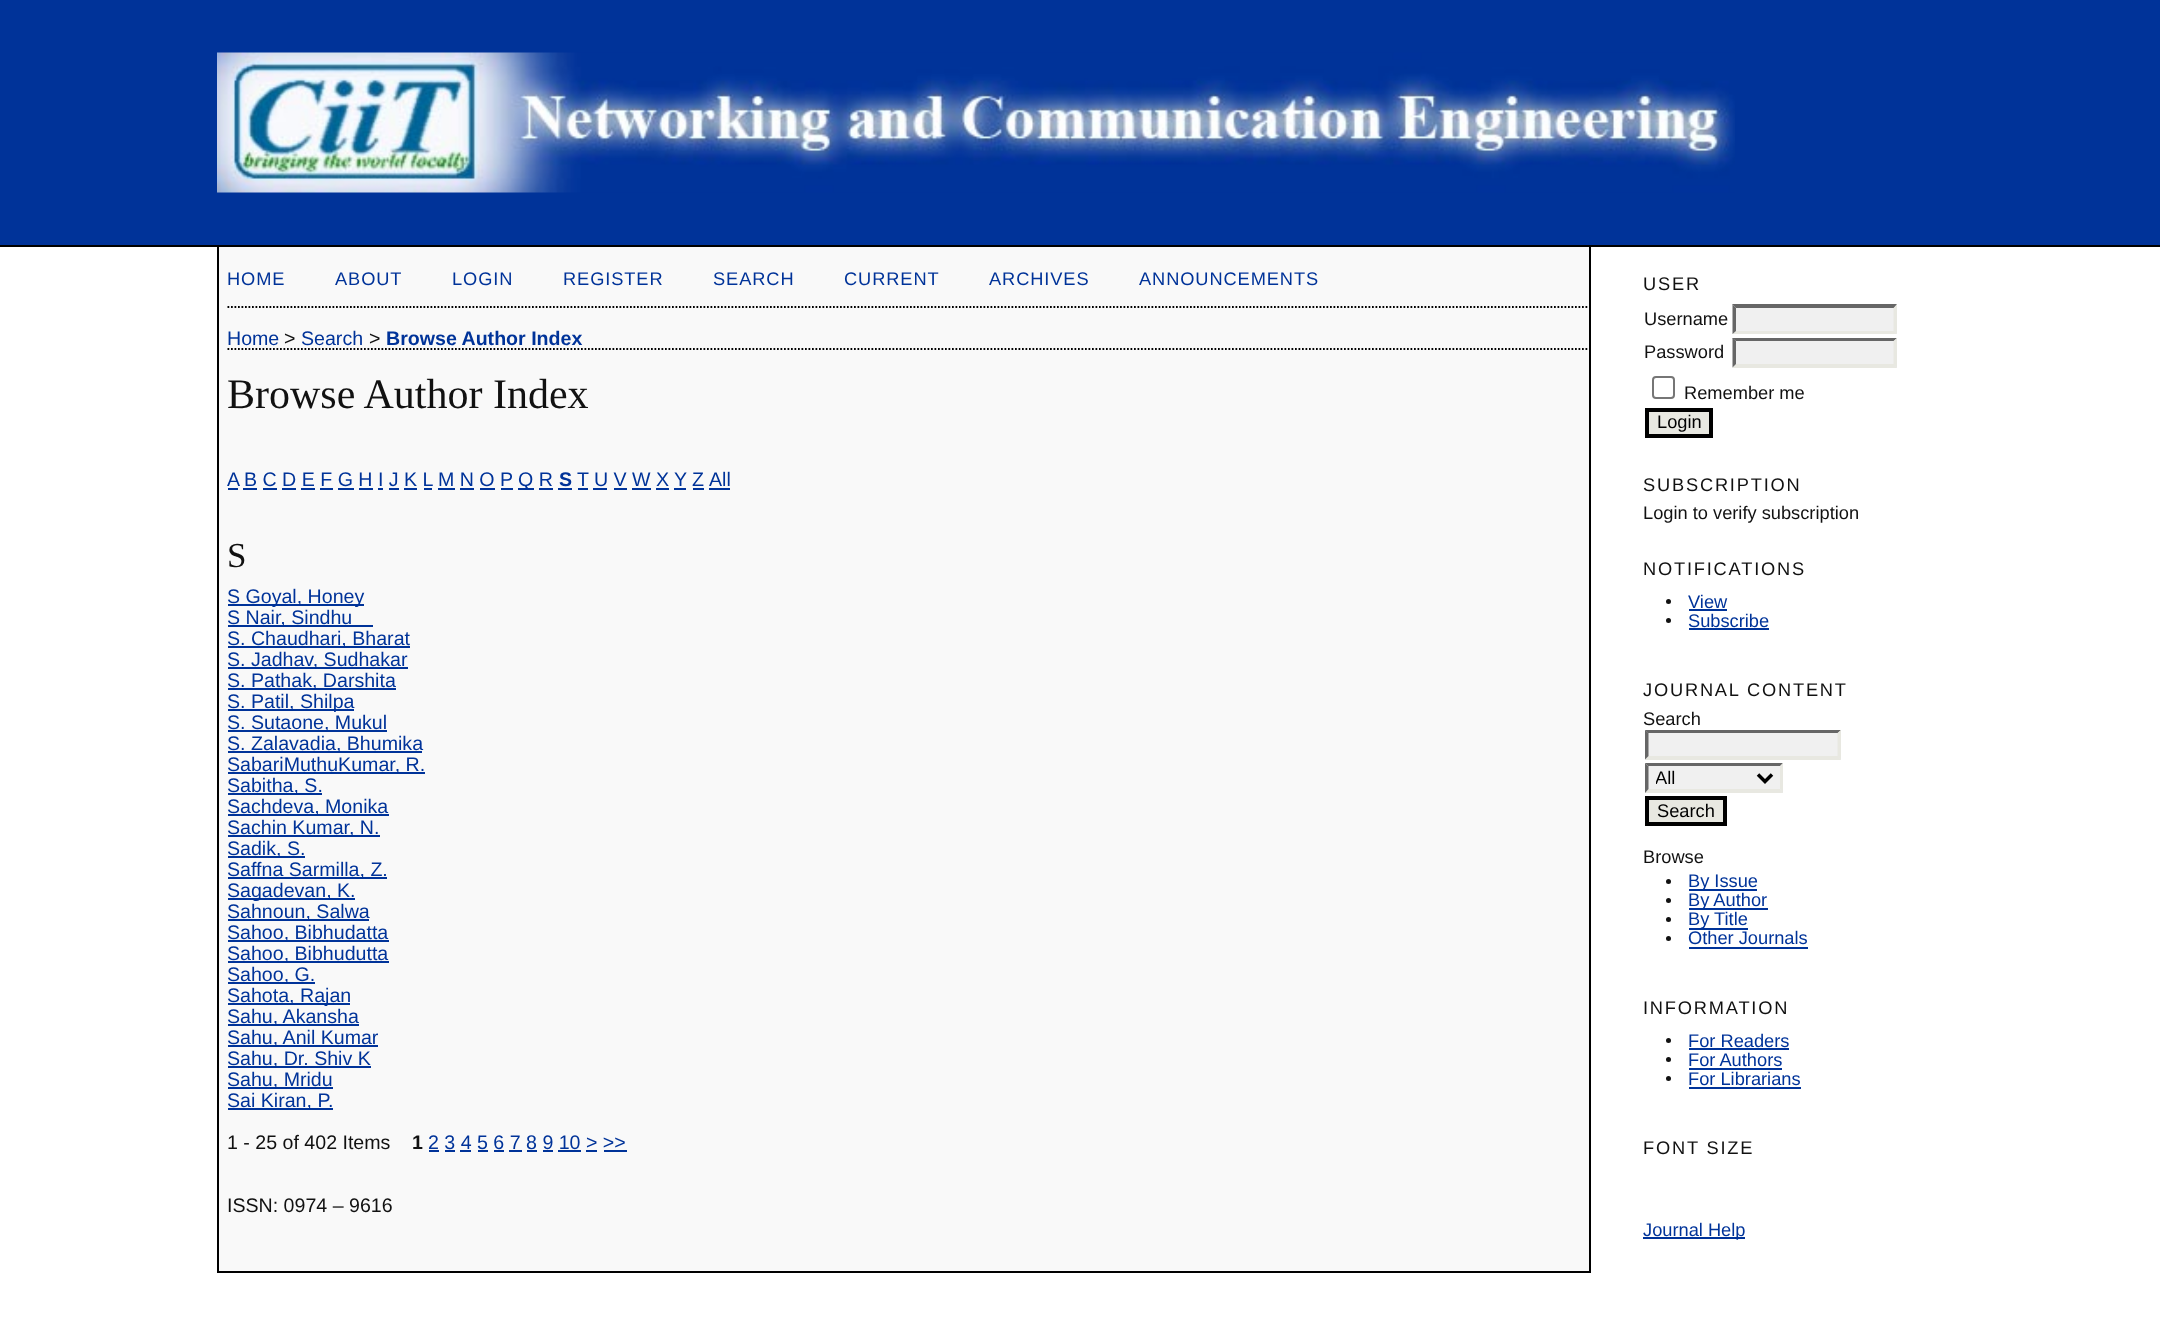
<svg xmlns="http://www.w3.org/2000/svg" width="2160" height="1341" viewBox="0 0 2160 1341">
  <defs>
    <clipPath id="clip1"><path d="M1656 767h96v22H1656z"/></clipPath>
  </defs>
  <rect width="100%" height="100%" fill="#fff"/>
  <path d="M0 0h2160v245H0z" fill="#039"/>
  <path d="M0 245h2160v2H0z" fill="#000"/>
  <image x="217" y="52" width="1518" height="141" href="img/1.png"/>
  <path d="M219 247h1370v1024H219z" fill="#f9f9f9"/>
  <path d="M1589 247h2v1025H1589z" fill="#000"/>
  <path d="M217 1271h1374v2H217z" fill="#000"/>
  <path d="M217 247h2v1025H217z" fill="#000"/>
  <path d="M227.5 307H1589" fill="none" stroke="#000" stroke-width="1.8" stroke-dasharray="1.75 1.75"/>
  <path d="M227.5 349H1589" fill="none" stroke="#000" stroke-width="1.8" stroke-dasharray="1.75 1.75"/>
  <path d="M228 488h10v2H228z" fill="#039"/>
  <path d="M243 488h14v2H243z" fill="#039"/>
  <path d="M438 488h17v2H438z" fill="#039"/>
  <path d="M518 488h16v2H518z" fill="#039"/>
  <path d="M558 488h14v2H558z" fill="#039"/>
  <path d="M578 488h10v2H578z" fill="#039"/>
  <path d="M593 488h14v2H593z" fill="#039"/>
  <path d="M674 488h12v2H674z" fill="#039"/>
  <path d="M693 488h11v2H693z" fill="#039"/>
  <path d="M709 488h21v2H709z" fill="#039"/>
  <path d="M263 488h14v2H263z" fill="#039"/>
  <path d="M282 488h14v2H282z" fill="#039"/>
  <path d="M301 488h14v2H301z" fill="#039"/>
  <path d="M320 488h13v2H320z" fill="#039"/>
  <path d="M338 488h16v2H338z" fill="#039"/>
  <path d="M359 488h14v2H359z" fill="#039"/>
  <path d="M378 488h5v2H378z" fill="#039"/>
  <path d="M389 488h10v2H389z" fill="#039"/>
  <path d="M404 488h13v2H404z" fill="#039"/>
  <path d="M424 488h8v2H424z" fill="#039"/>
  <path d="M460 488h14v2H460z" fill="#039"/>
  <path d="M480 488h15v2H480z" fill="#039"/>
  <path d="M501 488h12v2H501z" fill="#039"/>
  <path d="M539 488h14v2H539z" fill="#039"/>
  <path d="M614 488h13v2H614z" fill="#039"/>
  <path d="M632 488h19v2H632z" fill="#039"/>
  <path d="M656 488h13v2H656z" fill="#039"/>
  <path d="M228 604h136v2H228z" fill="#039"/>
  <path d="M228 625h145v2H228z" fill="#039"/>
  <path d="M228 646h182v2H228z" fill="#039"/>
  <path d="M228 667h180v2H228z" fill="#039"/>
  <path d="M228 688h168v2H228z" fill="#039"/>
  <path d="M228 709h126v2H228z" fill="#039"/>
  <path d="M228 730h159v2H228z" fill="#039"/>
  <path d="M228 751h194v2H228z" fill="#039"/>
  <path d="M228 772h197v2H228z" fill="#039"/>
  <path d="M228 793h94v2H228z" fill="#039"/>
  <path d="M228 814h161v2H228z" fill="#039"/>
  <path d="M228 835h152v2H228z" fill="#039"/>
  <path d="M228 856h77v2H228z" fill="#039"/>
  <path d="M228 877h159v2H228z" fill="#039"/>
  <path d="M228 898h127v2H228z" fill="#039"/>
  <path d="M228 919h141v2H228z" fill="#039"/>
  <path d="M228 940h161v2H228z" fill="#039"/>
  <path d="M228 961h161v2H228z" fill="#039"/>
  <path d="M228 982h87v2H228z" fill="#039"/>
  <path d="M228 1003h122v2H228z" fill="#039"/>
  <path d="M228 1024h131v2H228z" fill="#039"/>
  <path d="M228 1045h150v2H228z" fill="#039"/>
  <path d="M228 1066h143v2H228z" fill="#039"/>
  <path d="M228 1087h105v2H228z" fill="#039"/>
  <path d="M228 1108h105v2H228z" fill="#039"/>
  <path d="M429 1150h10v2H429z" fill="#039"/>
  <path d="M445 1150h10v2H445z" fill="#039"/>
  <path d="M460 1150h11v2H460z" fill="#039"/>
  <path d="M478 1150h10v2H478z" fill="#039"/>
  <path d="M494 1150h10v2H494z" fill="#039"/>
  <path d="M509 1150h13v2H509z" fill="#039"/>
  <path d="M527 1150h10v2H527z" fill="#039"/>
  <path d="M543 1150h10v2H543z" fill="#039"/>
  <path d="M558 1150h23v2H558z" fill="#039"/>
  <path d="M586 1150h11v2H586z" fill="#039"/>
  <path d="M604 1150h23v2H604z" fill="#039"/>
  <path d="M1733 305h164v29H1733z" fill="#f0f0f0"/>
  <path d="M1732 304H1897L1894 308H1736Z" fill="#666"/>
  <path d="M1897 304.5V334L1893.5 331V308Z" fill="#e8e8e1"/>
  <path d="M1897 334H1732L1736 331H1894Z" fill="#e8e8e1"/>
  <path d="M1732.5 334V304.5L1736 308V331Z" fill="#666"/>
  <path d="M1733 338h164v30H1733z" fill="#f0f0f0"/>
  <path d="M1732 338H1897L1894 341H1736Z" fill="#666"/>
  <path d="M1897 338V367.5L1893.5 364V341Z" fill="#e8e8e1"/>
  <path d="M1897 368H1732L1736 364H1894Z" fill="#e8e8e1"/>
  <path d="M1732.5 367.5V338L1736 341V364Z" fill="#666"/>
  <rect x="1653" y="377" width="21" height="21" rx="3" fill="none" stroke="#767676" stroke-width="2"/>
  <path d="M1647 410h64v26H1647z" fill="#e8e8e1" stroke="#000" stroke-width="4"/>
  <circle cx="1668.5" cy="601.5" r="2.5" fill="#111"/>
  <path d="M1689 609h38v2H1689z" fill="#039"/>
  <circle cx="1668.5" cy="620.5" r="2.5" fill="#111"/>
  <path d="M1689 628h80v2H1689z" fill="#039"/>
  <path d="M1645 730h196v30H1645z" fill="#f0f0f0"/>
  <path d="M1645 730H1841L1838 733H1648Z" fill="#666"/>
  <path d="M1841 730V759.5L1837.5 756V733Z" fill="#e8e8e1"/>
  <path d="M1841 760H1645L1648 756H1838Z" fill="#e8e8e1"/>
  <path d="M1645 759.5V730L1648.5 733V756Z" fill="#666"/>
  <path d="M1645 763h138v30H1645z" fill="#f0f0f0"/>
  <path d="M1645 763H1783L1780 766H1648Z" fill="#666"/>
  <path d="M1783 763V793L1780 789V766.5Z" fill="#e8e8e1"/>
  <path d="M1783 793H1645L1648 789H1780Z" fill="#e8e8e1"/>
  <path d="M1645 793V763L1648.5 766.5V789Z" fill="#666"/>
  <path d="M1758 774.5L1765 781.5L1772 774.5" fill="none" stroke="#000" stroke-width="3.5"/>
  <path d="M1647 798h78v26H1647z" fill="#e8e8e1" stroke="#000" stroke-width="4"/>
  <circle cx="1668.5" cy="881.5" r="2.5" fill="#111"/>
  <path d="M1689 889h68v2H1689z" fill="#039"/>
  <circle cx="1668.5" cy="900.5" r="2.5" fill="#111"/>
  <path d="M1689 908h79v2H1689z" fill="#039"/>
  <circle cx="1668.5" cy="919.5" r="2.5" fill="#111"/>
  <path d="M1689 928h59v2H1689z" fill="#039"/>
  <circle cx="1668.5" cy="938.5" r="2.5" fill="#111"/>
  <path d="M1689 947h119v2H1689z" fill="#039"/>
  <circle cx="1668.5" cy="1040.5" r="2.5" fill="#111"/>
  <path d="M1689 1048h100v2H1689z" fill="#039"/>
  <circle cx="1668.5" cy="1059.5" r="2.5" fill="#111"/>
  <path d="M1689 1068h93v2H1689z" fill="#039"/>
  <circle cx="1668.5" cy="1078.5" r="2.5" fill="#111"/>
  <path d="M1689 1087h112v2H1689z" fill="#039"/>
  <path d="M1643 1237h102v2H1643z" fill="#039"/>
  <g font-family="Liberation Sans" font-size="18.25" letter-spacing="0.9" fill="#039">
    <text x="227" y="285">HOME</text>
    <text x="335" y="285">ABOUT</text>
    <text x="452" y="285">LOGIN</text>
    <text x="563" y="285">REGISTER</text>
    <text x="713" y="285">SEARCH</text>
    <text x="844" y="285">CURRENT</text>
    <text x="989" y="285">ARCHIVES</text>
    <text x="1139" y="285">ANNOUNCEMENTS</text>
  </g>
  <text x="227" y="345" font-family="Liberation Sans" font-size="19.6" fill="#039">Home</text>
  <text x="284" y="345" font-family="Liberation Sans" font-size="19.6" fill="#111">&gt;</text>
  <text x="301" y="345" font-family="Liberation Sans" font-size="19.6" fill="#039">Search</text>
  <text x="369" y="345" font-family="Liberation Sans" font-size="19.6" fill="#111">&gt;</text>
  <text x="386" y="345" font-family="Liberation Sans" font-size="19.6" font-weight="bold" fill="#039">Browse Author Index</text>
  <text x="227" y="408" font-family="Liberation Serif" font-size="42" fill="#111">Browse Author Index</text>
  <g font-family="Liberation Sans" font-size="19.6" fill="#039">
    <text x="227" y="486">A</text>
    <text x="244" y="486">B C D E F G H I J K L</text>
    <text x="438" y="486">M N O P</text>
    <text x="518" y="486">Q R</text>
  </g>
  <text x="559" y="486" font-family="Liberation Sans" font-size="19.6" font-weight="bold" fill="#039">S</text>
  <g font-family="Liberation Sans" font-size="19.6" fill="#039">
    <text x="577" y="486">T</text>
    <text x="594" y="486">U V W X</text>
    <text x="674" y="486">Y</text>
    <text x="692" y="486">Z</text>
    <text x="709" y="486">All</text>
  </g>
  <text x="227" y="567" font-family="Liberation Serif" font-size="35" fill="#111">S</text>
  <g font-family="Liberation Sans" font-size="19.6" fill="#039">
    <text x="227" y="603">S Goyal, Honey</text>
    <text x="227" y="624">S Nair, Sindhu </text>
    <text x="227" y="645">S. Chaudhari, Bharat</text>
    <text x="227" y="666">S. Jadhav, Sudhakar</text>
    <text x="227" y="687">S. Pathak, Darshita</text>
    <text x="227" y="708">S. Patil, Shilpa</text>
    <text x="227" y="729">S. Sutaone, Mukul</text>
    <text x="227" y="750">S. Zalavadia, Bhumika</text>
    <text x="227" y="771">SabariMuthuKumar, R.</text>
    <text x="227" y="792">Sabitha, S.</text>
    <text x="227" y="813">Sachdeva, Monika</text>
    <text x="227" y="834">Sachin Kumar, N.</text>
    <text x="227" y="855">Sadik, S.</text>
    <text x="227" y="876">Saffna Sarmilla, Z.</text>
    <text x="227" y="897">Sagadevan, K.</text>
    <text x="227" y="918">Sahnoun, Salwa</text>
    <text x="227" y="939">Sahoo, Bibhudatta</text>
    <text x="227" y="960">Sahoo, Bibhudutta</text>
    <text x="227" y="981">Sahoo, G.</text>
    <text x="227" y="1002">Sahota, Rajan</text>
    <text x="227" y="1023">Sahu, Akansha</text>
    <text x="227" y="1044">Sahu, Anil Kumar</text>
    <text x="227" y="1065">Sahu, Dr. Shiv K</text>
    <text x="227" y="1086">Sahu, Mridu</text>
    <text x="227" y="1107">Sai Kiran, P.</text>
  </g>
  <text x="227" y="1149" font-family="Liberation Sans" font-size="19.6" fill="#111">1 - 25 of 402 Items</text>
  <text x="412" y="1149" font-family="Liberation Sans" font-size="19.6" font-weight="bold" fill="#111">1</text>
  <text x="428" y="1149" font-family="Liberation Sans" font-size="19.6" fill="#039">2 3 4 5 6 7 8 9 10 &gt; &gt;&gt;</text>
  <text x="227" y="1212" font-family="Liberation Sans" font-size="19.6" fill="#111">ISSN: 0974 – 9616</text>
  <text x="1643" y="290" font-family="Liberation Sans" font-size="18.25" letter-spacing="1.8" fill="#111">USER</text>
  <g font-family="Liberation Sans" font-size="18.25" fill="#111">
    <text x="1644" y="325">Username</text>
    <text x="1644" y="358">Password</text>
    <text x="1684" y="399">Remember me</text>
  </g>
  <text x="1657" y="428" font-family="Liberation Sans" font-size="18.25" fill="#000">Login</text>
  <text x="1643" y="491" font-family="Liberation Sans" font-size="18.25" letter-spacing="1.8" fill="#111">SUBSCRIPTION</text>
  <text x="1643" y="519" font-family="Liberation Sans" font-size="18.25" fill="#111">Login to verify subscription</text>
  <text x="1643" y="575" font-family="Liberation Sans" font-size="18.25" letter-spacing="1.8" fill="#111">NOTIFICATIONS</text>
  <g font-family="Liberation Sans" font-size="18.25" fill="#039">
    <text x="1688" y="608">View</text>
    <text x="1688" y="627">Subscribe</text>
  </g>
  <text x="1643" y="696" font-family="Liberation Sans" font-size="18.25" letter-spacing="1.8" fill="#111">JOURNAL CONTENT</text>
  <text x="1643" y="725" font-family="Liberation Sans" font-size="18.25" fill="#111">Search</text>
  <g clip-path="url(#clip1)">
    <text x="1655" y="784" font-family="Liberation Sans" font-size="18.25" fill="#000">All</text>
  </g>
  <text x="1657" y="817" font-family="Liberation Sans" font-size="18.25" fill="#000">Search</text>
  <text x="1643" y="863" font-family="Liberation Sans" font-size="18.25" fill="#111">Browse</text>
  <g font-family="Liberation Sans" font-size="18.25" fill="#039">
    <text x="1688" y="887">By Issue</text>
    <text x="1688" y="906">By Author</text>
    <text x="1688" y="925">By Title</text>
    <text x="1688" y="944">Other Journals</text>
  </g>
  <text x="1643" y="1014" font-family="Liberation Sans" font-size="18.25" letter-spacing="1.8" fill="#111">INFORMATION</text>
  <g font-family="Liberation Sans" font-size="18.25" fill="#039">
    <text x="1688" y="1047">For Readers</text>
    <text x="1688" y="1066">For Authors</text>
    <text x="1688" y="1085">For Librarians</text>
  </g>
  <text x="1643" y="1154" font-family="Liberation Sans" font-size="18.25" letter-spacing="1.8" fill="#111">FONT SIZE</text>
  <text x="1643" y="1236" font-family="Liberation Sans" font-size="18.25" fill="#039">Journal Help</text>
</svg>
